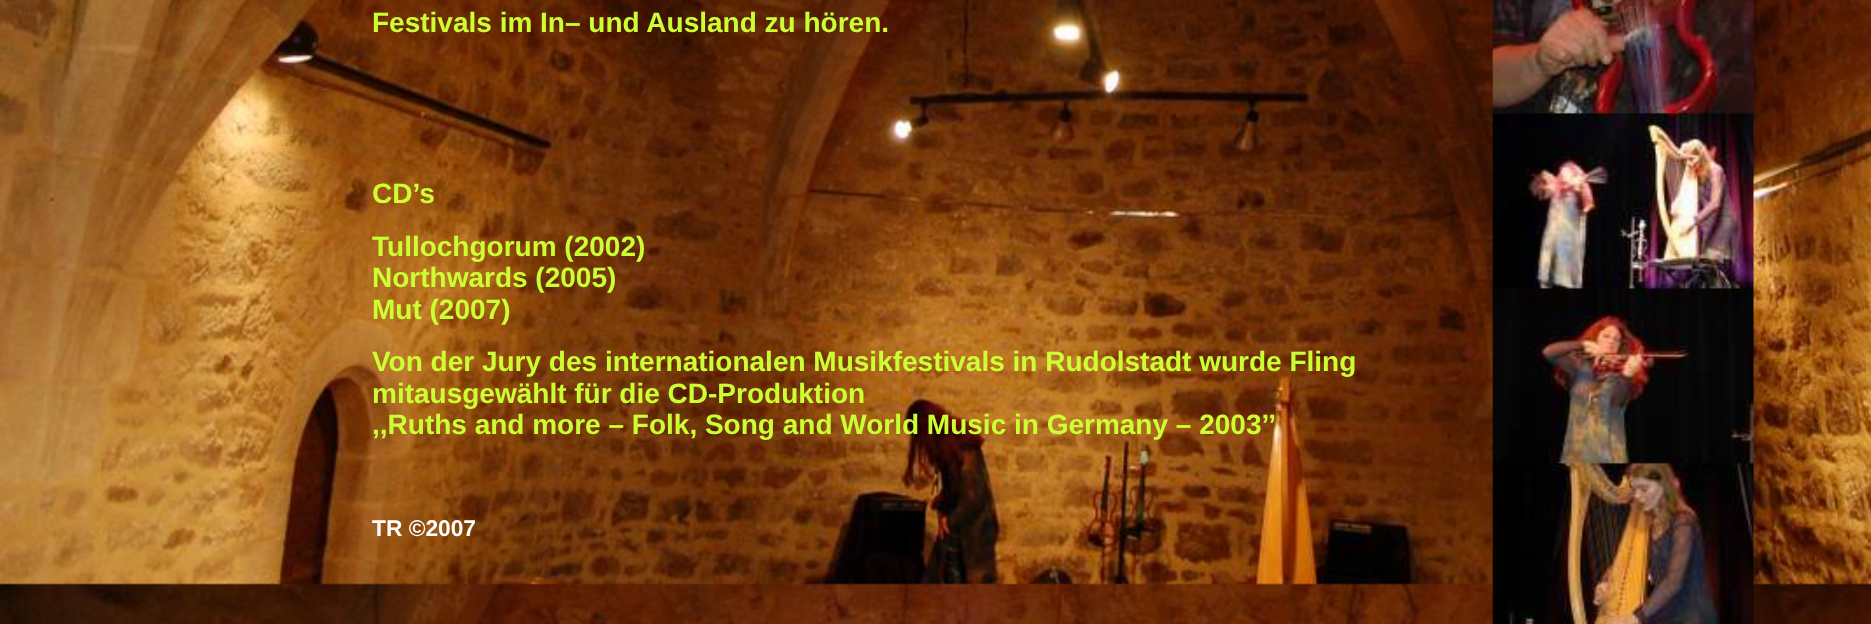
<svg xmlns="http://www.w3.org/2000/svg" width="1871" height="624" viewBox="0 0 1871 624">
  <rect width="100%" height="100%" fill="#fff"/>
  <image x="0" y="0" width="1871" height="624" href="img/1.png"/>
  <image x="1492" y="0" width="262" height="624" href="img/2.png"/>
  <g font-family="Liberation Sans" font-size="28" font-weight="bold" fill="#cf3">
    <text x="372" y="32">Festivals im In– und Ausland zu hören.</text>
    <text x="372" y="203">CD’s</text>
    <text x="372" y="256">Tullochgorum (2002)</text>
    <text x="372" y="287">Northwards (2005)</text>
    <text x="372" y="319">Mut (2007)</text>
    <text x="372" y="371">Von der Jury des internationalen Musikfestivals in Rudolstadt wurde Fling</text>
    <text x="372" y="403">mitausgewählt für die CD-Produktion</text>
    <text x="372" y="434">,,Ruths and more – Folk, Song and World Music in Germany – 2003’’</text>
  </g>
  <text x="372" y="536" font-family="Liberation Sans" font-size="22.75" font-weight="bold" fill="#fff">TR ©2007</text>
</svg>
